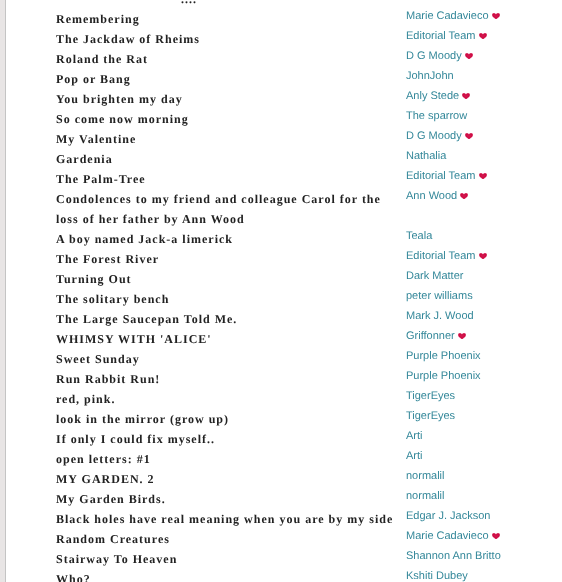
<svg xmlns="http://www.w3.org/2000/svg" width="562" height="582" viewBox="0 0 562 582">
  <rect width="100%" height="100%" fill="#fff"/>
  <path d="M2.5 -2.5h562v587H2.5z" fill="none" stroke="#e8e5e5" stroke-width="5"/>
  <path d="M5.5 -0.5h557v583H5.5z" fill="none" stroke="#c4c4c4"/>
  <image x="492" y="13" width="8" height="6" href="img/1.png"/>
  <image x="479" y="33" width="8" height="6" href="img/1.png"/>
  <image x="465" y="53" width="8" height="6" href="img/1.png"/>
  <image x="462" y="93" width="8" height="6" href="img/1.png"/>
  <image x="465" y="133" width="8" height="6" href="img/1.png"/>
  <image x="479" y="173" width="8" height="6" href="img/1.png"/>
  <image x="460" y="193" width="8" height="6" href="img/1.png"/>
  <image x="479" y="253" width="8" height="6" href="img/1.png"/>
  <image x="458" y="333" width="8" height="6" href="img/1.png"/>
  <image x="492" y="533" width="8" height="6" href="img/1.png"/>
  <g font-family="Liberation Serif" font-size="12" font-weight="bold" letter-spacing="1" fill="#222">
    <text x="181" y="3">....</text>
    <text x="56" y="23">Remembering</text>
  </g>
  <text x="406" y="19" font-family="Liberation Sans" font-size="11" fill="#338799">Marie Cadavieco</text>
  <text x="56" y="43" font-family="Liberation Serif" font-size="12" font-weight="bold" letter-spacing="1" fill="#222">The Jackdaw of Rheims</text>
  <text x="406" y="39" font-family="Liberation Sans" font-size="11" fill="#338799">Editorial Team</text>
  <text x="56" y="63" font-family="Liberation Serif" font-size="12" font-weight="bold" letter-spacing="1" fill="#222">Roland the Rat</text>
  <text x="406" y="59" font-family="Liberation Sans" font-size="11" fill="#338799">D G Moody</text>
  <text x="56" y="83" font-family="Liberation Serif" font-size="12" font-weight="bold" letter-spacing="1" fill="#222">Pop or Bang</text>
  <text x="406" y="79" font-family="Liberation Sans" font-size="11" fill="#338799">JohnJohn</text>
  <text x="56" y="103" font-family="Liberation Serif" font-size="12" font-weight="bold" letter-spacing="1" fill="#222">You brighten my day</text>
  <text x="406" y="99" font-family="Liberation Sans" font-size="11" fill="#338799">Anly Stede</text>
  <text x="56" y="123" font-family="Liberation Serif" font-size="12" font-weight="bold" letter-spacing="1" fill="#222">So come now morning</text>
  <text x="406" y="119" font-family="Liberation Sans" font-size="11" fill="#338799">The sparrow</text>
  <text x="56" y="143" font-family="Liberation Serif" font-size="12" font-weight="bold" letter-spacing="1" fill="#222">My Valentine</text>
  <text x="406" y="139" font-family="Liberation Sans" font-size="11" fill="#338799">D G Moody</text>
  <text x="56" y="163" font-family="Liberation Serif" font-size="12" font-weight="bold" letter-spacing="1" fill="#222">Gardenia</text>
  <text x="406" y="159" font-family="Liberation Sans" font-size="11" fill="#338799">Nathalia</text>
  <text x="56" y="183" font-family="Liberation Serif" font-size="12" font-weight="bold" letter-spacing="1" fill="#222">The Palm-Tree</text>
  <text x="406" y="179" font-family="Liberation Sans" font-size="11" fill="#338799">Editorial Team</text>
  <g font-family="Liberation Serif" font-size="12" font-weight="bold" letter-spacing="1" fill="#222">
    <text x="56" y="203">Condolences to my friend and colleague Carol for the</text>
    <text x="56" y="223">loss of her father by Ann Wood</text>
  </g>
  <text x="406" y="199" font-family="Liberation Sans" font-size="11" fill="#338799">Ann Wood</text>
  <text x="56" y="243" font-family="Liberation Serif" font-size="12" font-weight="bold" letter-spacing="1" fill="#222">A boy named Jack-a limerick</text>
  <text x="406" y="239" font-family="Liberation Sans" font-size="11" fill="#338799">Teala</text>
  <text x="56" y="263" font-family="Liberation Serif" font-size="12" font-weight="bold" letter-spacing="1" fill="#222">The Forest River</text>
  <text x="406" y="259" font-family="Liberation Sans" font-size="11" fill="#338799">Editorial Team</text>
  <text x="56" y="283" font-family="Liberation Serif" font-size="12" font-weight="bold" letter-spacing="1" fill="#222">Turning Out</text>
  <text x="406" y="279" font-family="Liberation Sans" font-size="11" fill="#338799">Dark Matter</text>
  <text x="56" y="303" font-family="Liberation Serif" font-size="12" font-weight="bold" letter-spacing="1" fill="#222">The solitary bench</text>
  <text x="406" y="299" font-family="Liberation Sans" font-size="11" fill="#338799">peter williams</text>
  <text x="56" y="323" font-family="Liberation Serif" font-size="12" font-weight="bold" letter-spacing="1" fill="#222">The Large Saucepan Told Me.</text>
  <text x="406" y="319" font-family="Liberation Sans" font-size="11" fill="#338799">Mark J. Wood</text>
  <text x="56" y="343" font-family="Liberation Serif" font-size="12" font-weight="bold" letter-spacing="1" fill="#222">WHIMSY WITH 'ALICE'</text>
  <text x="406" y="339" font-family="Liberation Sans" font-size="11" fill="#338799">Griffonner</text>
  <text x="56" y="363" font-family="Liberation Serif" font-size="12" font-weight="bold" letter-spacing="1" fill="#222">Sweet Sunday</text>
  <text x="406" y="359" font-family="Liberation Sans" font-size="11" fill="#338799">Purple Phoenix</text>
  <text x="56" y="383" font-family="Liberation Serif" font-size="12" font-weight="bold" letter-spacing="1" fill="#222">Run Rabbit Run!</text>
  <text x="406" y="379" font-family="Liberation Sans" font-size="11" fill="#338799">Purple Phoenix</text>
  <text x="56" y="403" font-family="Liberation Serif" font-size="12" font-weight="bold" letter-spacing="1" fill="#222">red, pink.</text>
  <text x="406" y="399" font-family="Liberation Sans" font-size="11" fill="#338799">TigerEyes</text>
  <text x="56" y="423" font-family="Liberation Serif" font-size="12" font-weight="bold" letter-spacing="1" fill="#222">look in the mirror (grow up)</text>
  <text x="406" y="419" font-family="Liberation Sans" font-size="11" fill="#338799">TigerEyes</text>
  <text x="56" y="443" font-family="Liberation Serif" font-size="12" font-weight="bold" letter-spacing="1" fill="#222">If only I could fix myself..</text>
  <text x="406" y="439" font-family="Liberation Sans" font-size="11" fill="#338799">Arti</text>
  <text x="56" y="463" font-family="Liberation Serif" font-size="12" font-weight="bold" letter-spacing="1" fill="#222">open letters: #1</text>
  <text x="406" y="459" font-family="Liberation Sans" font-size="11" fill="#338799">Arti</text>
  <text x="56" y="483" font-family="Liberation Serif" font-size="12" font-weight="bold" letter-spacing="1" fill="#222">MY GARDEN. 2</text>
  <text x="406" y="479" font-family="Liberation Sans" font-size="11" fill="#338799">normalil</text>
  <text x="56" y="503" font-family="Liberation Serif" font-size="12" font-weight="bold" letter-spacing="1" fill="#222">My Garden Birds.</text>
  <text x="406" y="499" font-family="Liberation Sans" font-size="11" fill="#338799">normalil</text>
  <text x="56" y="523" font-family="Liberation Serif" font-size="12" font-weight="bold" letter-spacing="1" fill="#222">Black holes have real meaning when you are by my side</text>
  <text x="406" y="519" font-family="Liberation Sans" font-size="11" fill="#338799">Edgar J. Jackson</text>
  <text x="56" y="543" font-family="Liberation Serif" font-size="12" font-weight="bold" letter-spacing="1" fill="#222">Random Creatures</text>
  <text x="406" y="539" font-family="Liberation Sans" font-size="11" fill="#338799">Marie Cadavieco</text>
  <text x="56" y="563" font-family="Liberation Serif" font-size="12" font-weight="bold" letter-spacing="1" fill="#222">Stairway To Heaven</text>
  <text x="406" y="559" font-family="Liberation Sans" font-size="11" fill="#338799">Shannon Ann Britto</text>
  <text x="56" y="583" font-family="Liberation Serif" font-size="12" font-weight="bold" letter-spacing="1" fill="#222">Who?</text>
  <text x="406" y="579" font-family="Liberation Sans" font-size="11" fill="#338799">Kshiti Dubey</text>
</svg>
